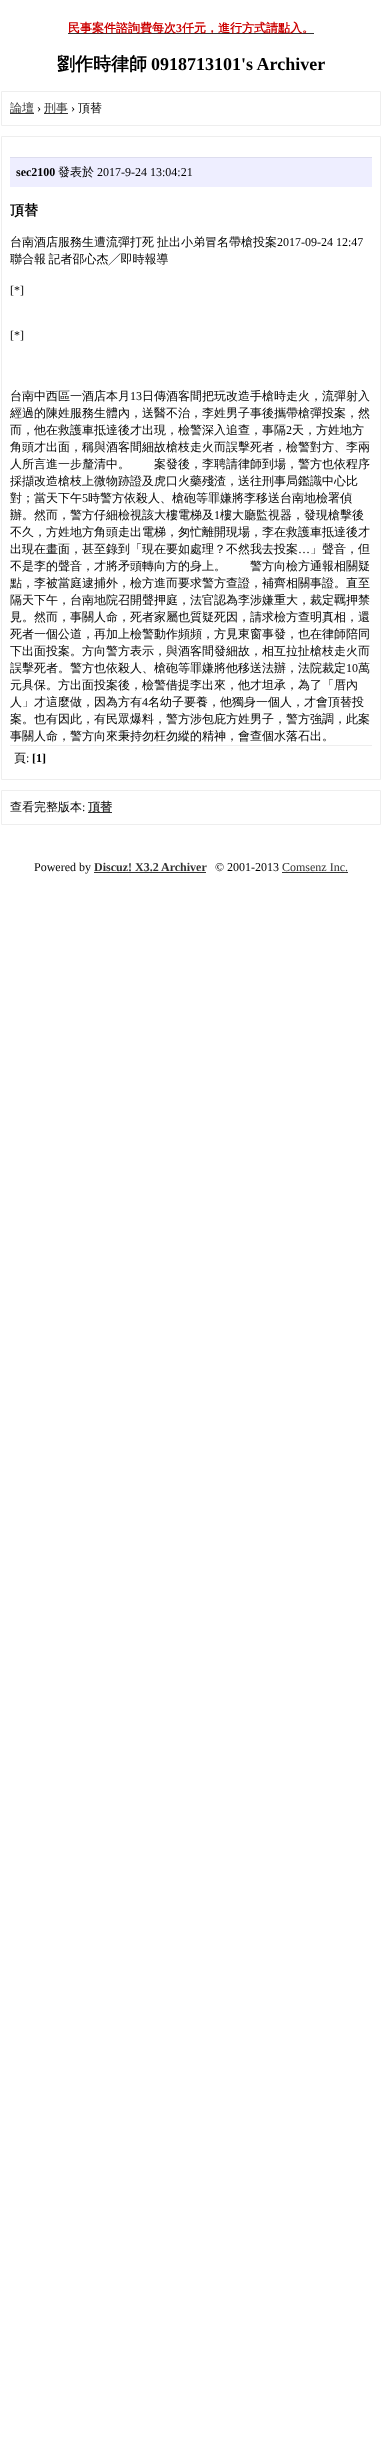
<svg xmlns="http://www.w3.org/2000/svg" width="382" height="2449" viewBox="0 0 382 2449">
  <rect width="100%" height="100%" fill="#fff"/>
  <path d="M68 33h246v1H68z" fill="#333"/>
  <path d="M1.5 91.5h379v34H1.5z" fill="none" stroke="#eee"/>
  <path d="M10 113h24v1H10z" fill="#333"/>
  <path d="M44 113h24v1H44z" fill="#333"/>
  <path d="M1.5 136.5h379v643H1.5z" fill="none" stroke="#eee"/>
  <path d="M10 158h362v29H10z" fill="#eef"/>
  <path d="M10 157h362v1H10z" fill="#dde"/>
  <path d="M10 745h362v1H10z" fill="#eee"/>
  <path d="M1.5 790.5h379v34H1.5z" fill="none" stroke="#eee"/>
  <path d="M88 812h24v1H88z" fill="#333"/>
  <path d="M94 872h112v1H94z" fill="#333"/>
  <path d="M282 872h66v1H282z" fill="#333"/>
  <text x="68" y="32" font-family="WenQuanYi Zen Hei" font-size="12" font-weight="bold" fill="#c00">民事案件諮詢費每次</text>
  <text x="176" y="32" font-family="Liberation Serif" font-size="12" font-weight="bold" fill="#c00">3</text>
  <text x="182" y="32" font-family="WenQuanYi Zen Hei" font-size="12" font-weight="bold" fill="#c00">仟元，進行方式請點入。</text>
  <text x="57" y="70" font-family="WenQuanYi Zen Hei" font-size="18" font-weight="bold" fill="#000">劉作時律師</text>
  <text x="151" y="70" font-family="Liberation Serif" font-size="18" font-weight="bold" fill="#000">0918713101's Archiver</text>
  <text x="10" y="112" font-family="WenQuanYi Zen Hei" font-size="12" font-weight="500" fill="#333">論壇</text>
  <text x="37" y="112" font-family="Liberation Serif" font-size="12" fill="#000">›</text>
  <text x="44" y="112" font-family="WenQuanYi Zen Hei" font-size="12" font-weight="500" fill="#333">刑事</text>
  <text x="71" y="112" font-family="Liberation Serif" font-size="12" fill="#000">›</text>
  <text x="78" y="112" font-family="WenQuanYi Zen Hei" font-size="12" font-weight="500" fill="#000">頂替</text>
  <text x="16" y="176" font-family="Liberation Serif" font-size="12" font-weight="bold" fill="#000">sec2100</text>
  <text x="58" y="176" font-family="WenQuanYi Zen Hei" font-size="12" font-weight="500" fill="#000">發表於</text>
  <text x="97" y="176" font-family="Liberation Serif" font-size="12" fill="#000">2017-9-24 13:04:21</text>
  <text x="10" y="215" font-family="WenQuanYi Zen Hei" font-size="14" font-weight="bold" fill="#000">頂替</text>
  <g font-family="WenQuanYi Zen Hei" font-size="12" font-weight="500" fill="#000">
    <text x="10" y="246">台南酒店服務生遭流彈打死</text>
    <text x="157" y="246">扯出小弟冒名帶槍投案</text>
  </g>
  <text x="277" y="246" font-family="Liberation Serif" font-size="12" fill="#000">2017-09-24 12:47</text>
  <text x="10" y="263" word-spacing="-1" font-family="WenQuanYi Zen Hei" font-size="12" font-weight="500" fill="#000">聯合報 記者邵心杰╱即時報導</text>
  <g font-family="Liberation Serif" font-size="12" fill="#000">
    <text x="10" y="294">[*]</text>
    <text x="10" y="339">[*]</text>
  </g>
  <text x="10" y="400" font-family="WenQuanYi Zen Hei" font-size="12" font-weight="500" fill="#000">台南中西區一酒店本月</text>
  <text x="130" y="400" font-family="Liberation Serif" font-size="12" fill="#000">13</text>
  <g font-family="WenQuanYi Zen Hei" font-size="12" font-weight="500" fill="#000">
    <text x="142" y="400">日傳酒客間把玩改造手槍時走火，流彈射入</text>
    <text x="10" y="417">經過的陳姓服務生體內，送醫不治，李姓男子事後攜帶槍彈投案，然</text>
    <text x="10" y="434">而，他在救護車抵達後才出現，檢警深入追查，事隔</text>
  </g>
  <text x="286" y="434" font-family="Liberation Serif" font-size="12" fill="#000">2</text>
  <g font-family="WenQuanYi Zen Hei" font-size="12" font-weight="500" fill="#000">
    <text x="292" y="434">天，方姓地方</text>
    <text x="10" y="451">角頭才出面，稱與酒客間細故槍枝走火而誤擊死者，檢警對方、李兩</text>
    <text x="10" y="468">人所言進一步釐清中。　　案發後，李聘請律師到場，警方也依程序</text>
    <text x="10" y="485">採擷改造槍枝上微物跡證及虎口火藥殘渣，送往刑事局鑑識中心比</text>
    <text x="10" y="502">對；當天下午</text>
  </g>
  <text x="82" y="502" font-family="Liberation Serif" font-size="12" fill="#000">5</text>
  <g font-family="WenQuanYi Zen Hei" font-size="12" font-weight="500" fill="#000">
    <text x="88" y="502">時警方依殺人、槍砲等罪嫌將李移送台南地檢署偵</text>
    <text x="10" y="519">辦。然而，警方仔細檢視該大樓電梯及</text>
  </g>
  <text x="214" y="519" font-family="Liberation Serif" font-size="12" fill="#000">1</text>
  <g font-family="WenQuanYi Zen Hei" font-size="12" font-weight="500" fill="#000">
    <text x="220" y="519">樓大廳監視器，發現槍擊後</text>
    <text x="10" y="536">不久，方姓地方角頭走出電梯，匆忙離開現場，李在救護車抵達後才</text>
    <text x="10" y="553">出現在畫面，甚至錄到「現在要如處理？不然我去投案</text>
  </g>
  <text x="298" y="553" font-family="Liberation Serif" font-size="12" fill="#000">…</text>
  <g font-family="WenQuanYi Zen Hei" font-size="12" font-weight="500" fill="#000">
    <text x="310" y="553">」聲音，但</text>
    <text x="10" y="570">不是李的聲音，才將矛頭轉向方的身上。　　警方向檢方通報相關疑</text>
    <text x="10" y="587">點，李被當庭逮捕外，檢方進而要求警方查證，補齊相關事證。直至</text>
    <text x="10" y="604">隔天下午，台南地院召開聲押庭，法官認為李涉嫌重大，裁定羈押禁</text>
    <text x="10" y="621">見。然而，事關人命，死者家屬也質疑死因，請求檢方查明真相，還</text>
    <text x="10" y="638">死者一個公道，再加上檢警動作頻頻，方見東窗事發，也在律師陪同</text>
    <text x="10" y="655">下出面投案。方向警方表示，與酒客間發細故，相互拉扯槍枝走火而</text>
    <text x="10" y="672">誤擊死者。警方也依殺人、槍砲等罪嫌將他移送法辦，法院裁定</text>
  </g>
  <text x="346" y="672" font-family="Liberation Serif" font-size="12" fill="#000">10</text>
  <g font-family="WenQuanYi Zen Hei" font-size="12" font-weight="500" fill="#000">
    <text x="358" y="672">萬</text>
    <text x="10" y="689">元具保。方出面投案後，檢警借提李出來，他才坦承，為了「厝內</text>
    <text x="10" y="706">人」才這麼做，因為方有</text>
  </g>
  <text x="142" y="706" font-family="Liberation Serif" font-size="12" fill="#000">4</text>
  <g font-family="WenQuanYi Zen Hei" font-size="12" font-weight="500" fill="#000">
    <text x="148" y="706">名幼子要養，他獨身一個人，才會頂替投</text>
    <text x="10" y="723">案。也有因此，有民眾爆料，警方涉包庇方姓男子，警方強調，此案</text>
    <text x="10" y="740">事關人命，警方向來秉持勿枉勿縱的精神，會查個水落石出。</text>
    <text x="14" y="762">頁</text>
  </g>
  <text x="26" y="762" font-family="Liberation Serif" font-size="12" fill="#000">:</text>
  <text x="32" y="762" font-family="Liberation Serif" font-size="12" font-weight="bold" fill="#000">[1]</text>
  <text x="10" y="811" font-family="WenQuanYi Zen Hei" font-size="12" font-weight="500" fill="#000">查看完整版本</text>
  <text x="82" y="811" font-family="Liberation Serif" font-size="12" fill="#000">:</text>
  <text x="88" y="811" font-family="WenQuanYi Zen Hei" font-size="12" font-weight="bold" fill="#333">頂替</text>
  <text x="34" y="871" font-family="Liberation Serif" font-size="12" fill="#000">Powered by</text>
  <text x="94" y="871" font-family="Liberation Serif" font-size="12" font-weight="bold" fill="#333">Discuz! X3.2 Archiver</text>
  <text x="215" y="871" font-family="Liberation Serif" font-size="12" fill="#000">© 2001-2013</text>
  <text x="282" y="871" font-family="Liberation Serif" font-size="12" fill="#333">Comsenz Inc.</text>
</svg>
